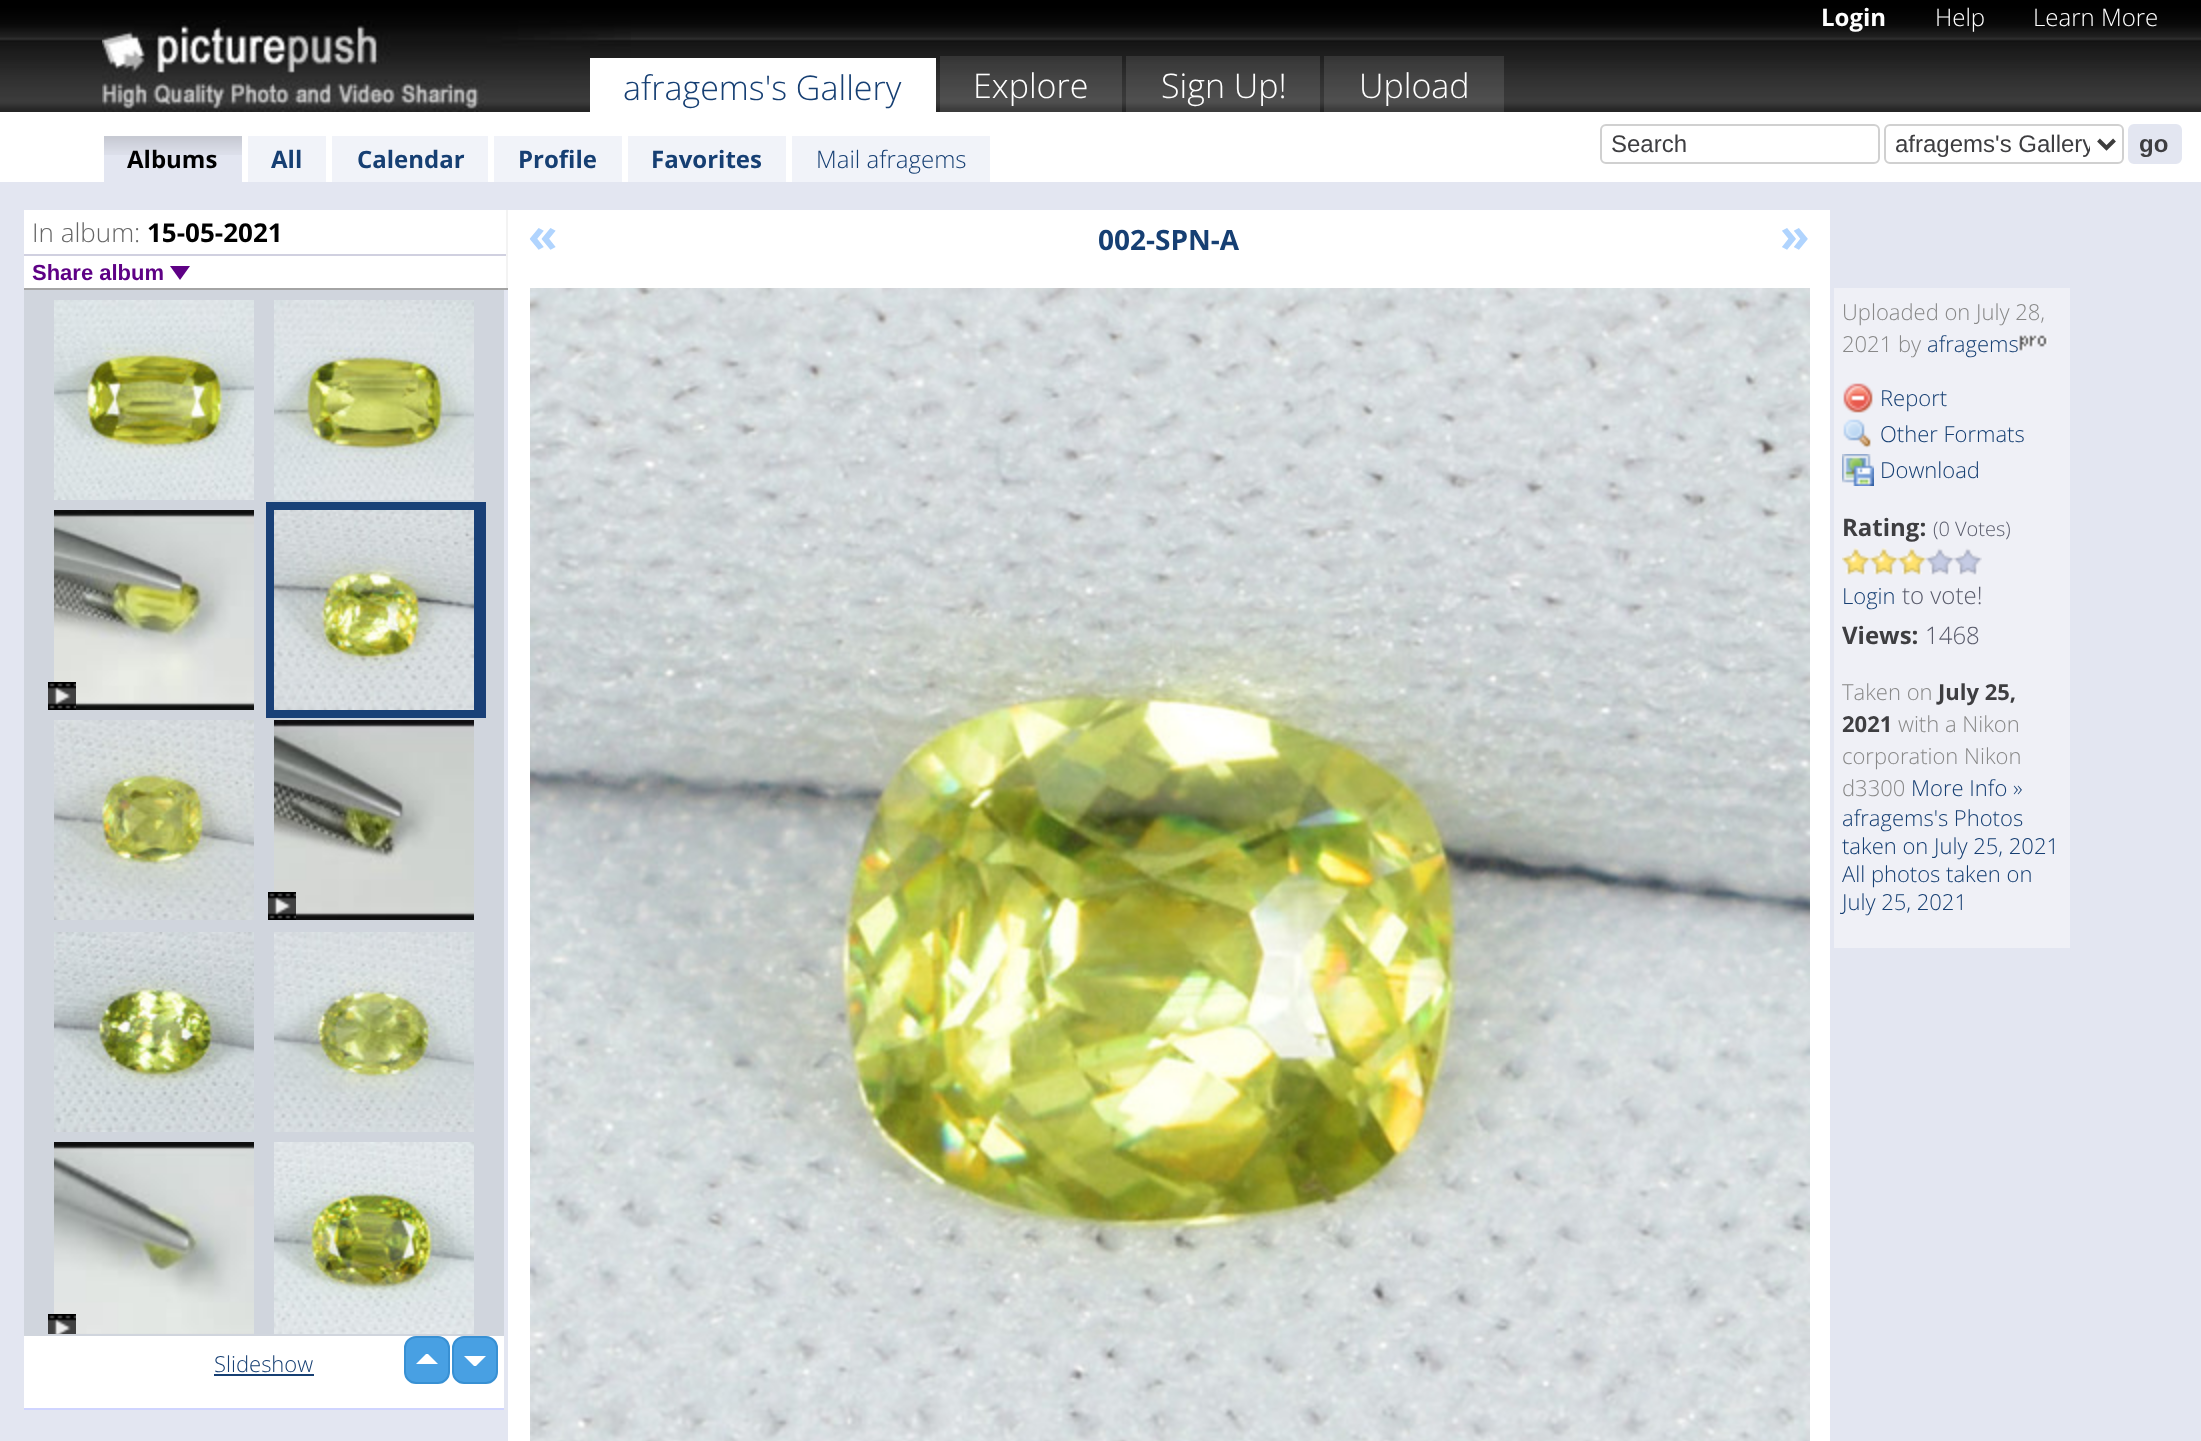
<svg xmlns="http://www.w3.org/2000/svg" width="2201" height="1441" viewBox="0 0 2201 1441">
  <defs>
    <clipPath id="clip1"><path d="M1894 128h196v32H1894z"/></clipPath>
  </defs>
  <rect width="100%" height="100%" fill="#e3e6f1"/>
  <image x="0" y="0" width="2201" height="112" href="img/1.png"/>
  <image x="102" y="20" width="529" height="92" href="img/2.png"/>
  <path d="M590 58h346v54H590z" fill="#fff"/>
  <path d="M940 56h182v56H940z" fill="#ffffff1a"/>
  <path d="M1126 56h194v56H1126z" fill="#ffffff1a"/>
  <path d="M1324 56h180v56H1324z" fill="#ffffff1a"/>
  <path d="M0 112h2201v70H0z" fill="#fff"/>
  <rect x="1601" y="125" width="278" height="38" rx="5" fill="none" stroke="#d0d0d0" stroke-width="2"/>
  <rect x="1885" y="125" width="238" height="38" rx="5" fill="none" stroke="#d0d0d0" stroke-width="2"/>
  <path d="M2098.5 140L2106.5 148L2114.5 140" fill="none" stroke="#3e3e3e" stroke-width="4"/>
  <rect x="2129" y="125" width="52" height="38" rx="5" fill="#e3e6f1" stroke="#e3e6f1" stroke-width="2"/>
  <path d="M104 136h138v46H104z" fill="#e3e6f1"/>
  <image x="104" y="136" width="138" height="19" href="img/3.png"/>
  <path d="M248 136h78v46H248z" fill="#f1f3f9"/>
  <path d="M332 136h156v46H332z" fill="#f1f3f9"/>
  <path d="M494 136h128v46H494z" fill="#f1f3f9"/>
  <path d="M628 136h158v46H628z" fill="#f1f3f9"/>
  <path d="M792 136h198v46H792z" fill="#f1f3f9"/>
  <path d="M24 210h482v78H24z" fill="#fff"/>
  <path d="M506 210h2v80H506z" fill="#f3f3f3"/>
  <path d="M24 288h484v2H24z" fill="#a4a4a4"/>
  <path d="M24 254h482v2H24z" fill="#d0d0e0"/>
  <path d="M170 266H190L180 280Z" fill="#5e0085"/>
  <path d="M24 290h480v1046H24z" fill="#d0d5dd"/>
  <path d="M24 1408h480v2H24z" fill="#cfd4ff"/>
  <image x="54" y="300" width="200" height="200" href="img/4.png"/>
  <image x="274" y="300" width="200" height="200" href="img/5.png"/>
  <image x="54" y="510" width="200" height="200" href="img/6.png"/>
  <image x="48" y="682" width="28" height="28" href="img/7.png"/>
  <path d="M266 502h220v216H266z" fill="#194077"/>
  <image x="274" y="510" width="200" height="200" href="img/8.png"/>
  <image x="54" y="720" width="200" height="200" href="img/9.png"/>
  <image x="274" y="720" width="200" height="200" href="img/10.png"/>
  <image x="268" y="892" width="28" height="28" href="img/7.png"/>
  <image x="54" y="932" width="200" height="200" href="img/11.png"/>
  <image x="274" y="932" width="200" height="200" href="img/12.png"/>
  <image x="54" y="1142" width="200" height="192" href="img/13.png"/>
  <image x="48" y="1314" width="28" height="20" href="img/14.png"/>
  <image x="274" y="1142" width="200" height="192" href="img/15.png"/>
  <path d="M24 1336h480v72H24z" fill="#fff"/>
  <rect x="405" y="1337" width="44" height="46" rx="11" fill="#48a0e3" stroke="#3890d3" stroke-width="2"/>
  <path d="M438 1364H416L426 1354H428Z" fill="#fff"/>
  <rect x="453" y="1337" width="44" height="46" rx="11" fill="#48a0e3" stroke="#3890d3" stroke-width="2"/>
  <path d="M464 1356H486L476 1366H474Z" fill="#fff"/>
  <path d="M214 1374h100v2H214z" fill="#163f73"/>
  <path d="M508 210h1322v1231H508z" fill="#fff"/>
  <image x="530" y="288" width="1280" height="1153" href="img/16.png"/>
  <path d="M1834 288h236v660H1834z" fill="#eff0f6"/>
  <image x="2019" y="335" width="29" height="16" href="img/17.png"/>
  <image x="1843" y="383" width="30" height="30" href="img/18.png"/>
  <image x="1843" y="419" width="28" height="29" href="img/19.png"/>
  <image x="1842" y="454" width="32" height="32" href="img/20.png"/>
  <image x="1842" y="548" width="28" height="27" href="img/21.png"/>
  <image x="1870" y="548" width="28" height="27" href="img/21.png"/>
  <image x="1898" y="548" width="28" height="27" href="img/21.png"/>
  <image x="1926" y="548" width="28" height="27" href="img/22.png"/>
  <image x="1954" y="548" width="28" height="27" href="img/22.png"/>
  <text x="623" y="100" font-family="Open Sans" font-size="34" font-weight="300" fill="#163f73">afragems's Gallery</text>
  <g font-family="Open Sans" font-size="34" font-weight="300" fill="#fff">
    <text x="973" y="98">Explore</text>
    <text x="1161" y="98">Sign Up!</text>
    <text x="1359" y="98">Upload</text>
  </g>
  <text x="1821" y="26" font-family="Open Sans" font-size="24" font-weight="bold" fill="#fff">Login</text>
  <g font-family="Open Sans" font-size="24" font-weight="300" fill="#fff">
    <text x="1935" y="26">Help</text>
    <text x="2033" y="26">Learn More</text>
  </g>
  <text x="1611" y="152" font-family="Liberation Sans" font-size="24" fill="#3e3e41">Search</text>
  <g clip-path="url(#clip1)">
    <text x="1895" y="152" font-family="Liberation Sans" font-size="24" fill="#3e3e41">afragems's Gallery</text>
  </g>
  <text x="2139" y="152" font-family="Liberation Sans" font-size="24" font-weight="bold" fill="#3e3e41">go</text>
  <text x="127" y="168" font-family="Open Sans" font-size="24" font-weight="bold" fill="#000">Albums</text>
  <g font-family="Open Sans" font-size="24" font-weight="bold" fill="#163f73">
    <text x="271" y="168">All</text>
    <text x="357" y="168">Calendar</text>
    <text x="518" y="168">Profile</text>
    <text x="651" y="168">Favorites</text>
  </g>
  <text x="816" y="168" font-family="Open Sans" font-size="24" font-weight="300" fill="#163f73">Mail afragems</text>
  <text x="32" y="242" font-family="Open Sans" font-size="26" font-weight="300" fill="#666">In album:</text>
  <text x="147" y="242" font-family="Open Sans" font-size="26" font-weight="bold" fill="#000">15-05-2021</text>
  <text x="32" y="280" font-family="Liberation Sans" font-size="22" font-weight="bold" fill="#5e0085">Share album</text>
  <text x="214" y="1372" font-family="Open Sans" font-size="22" font-weight="300" fill="#163f73">Slideshow</text>
  <text x="528" y="252" font-family="Open Sans" font-size="48" font-weight="bold" fill="#b0d4fe">«</text>
  <text x="1098" y="250" font-family="Open Sans" font-size="28" font-weight="bold" fill="#163f73">002-SPN-A</text>
  <text x="1780" y="252" font-family="Open Sans" font-size="48" font-weight="bold" fill="#b0d4fe">»</text>
  <g font-family="Open Sans" font-size="22" font-weight="300" fill="#888">
    <text x="1842" y="320">Uploaded on July 28,</text>
    <text x="1842" y="352">2021 by</text>
  </g>
  <g font-family="Open Sans" font-size="22" font-weight="300" fill="#163f73">
    <text x="1927" y="352">afragems</text>
    <text x="1880" y="406">Report</text>
    <text x="1880" y="442">Other Formats</text>
    <text x="1880" y="478">Download</text>
  </g>
  <text x="1842" y="536" font-family="Open Sans" font-size="24" font-weight="bold" fill="#3e3e41">Rating:</text>
  <text x="1933" y="536" font-family="Open Sans" font-size="20" font-weight="300" fill="#5a5c6c">(0 Votes)</text>
  <text x="1842" y="604" font-family="Open Sans" font-size="22" font-weight="300" fill="#163f73">Login</text>
  <text x="1902" y="604" font-family="Open Sans" font-size="24" font-weight="300" fill="#5a5c6c">to vote!</text>
  <text x="1842" y="644" font-family="Open Sans" font-size="24" font-weight="bold" fill="#3e3e41">Views:</text>
  <text x="1925" y="644" font-family="Open Sans" font-size="24" font-weight="300" fill="#5a5c6c">1468</text>
  <text x="1842" y="700" font-family="Open Sans" font-size="22" font-weight="300" fill="#888">Taken on</text>
  <g font-family="Open Sans" font-size="22" font-weight="bold" fill="#3e3e41">
    <text x="1938" y="700">July 25,</text>
    <text x="1842" y="732">2021</text>
  </g>
  <g font-family="Open Sans" font-size="22" font-weight="300" fill="#888">
    <text x="1898" y="732">with a Nikon</text>
    <text x="1842" y="764">corporation Nikon</text>
    <text x="1842" y="796">d3300</text>
  </g>
  <g font-family="Open Sans" font-size="22" font-weight="300" fill="#163f73">
    <text x="1911" y="796">More Info »</text>
    <text x="1842" y="826">afragems's Photos</text>
    <text x="1842" y="854">taken on July 25, 2021</text>
    <text x="1842" y="882">All photos taken on</text>
    <text x="1842" y="910">July 25, 2021</text>
  </g>
</svg>
